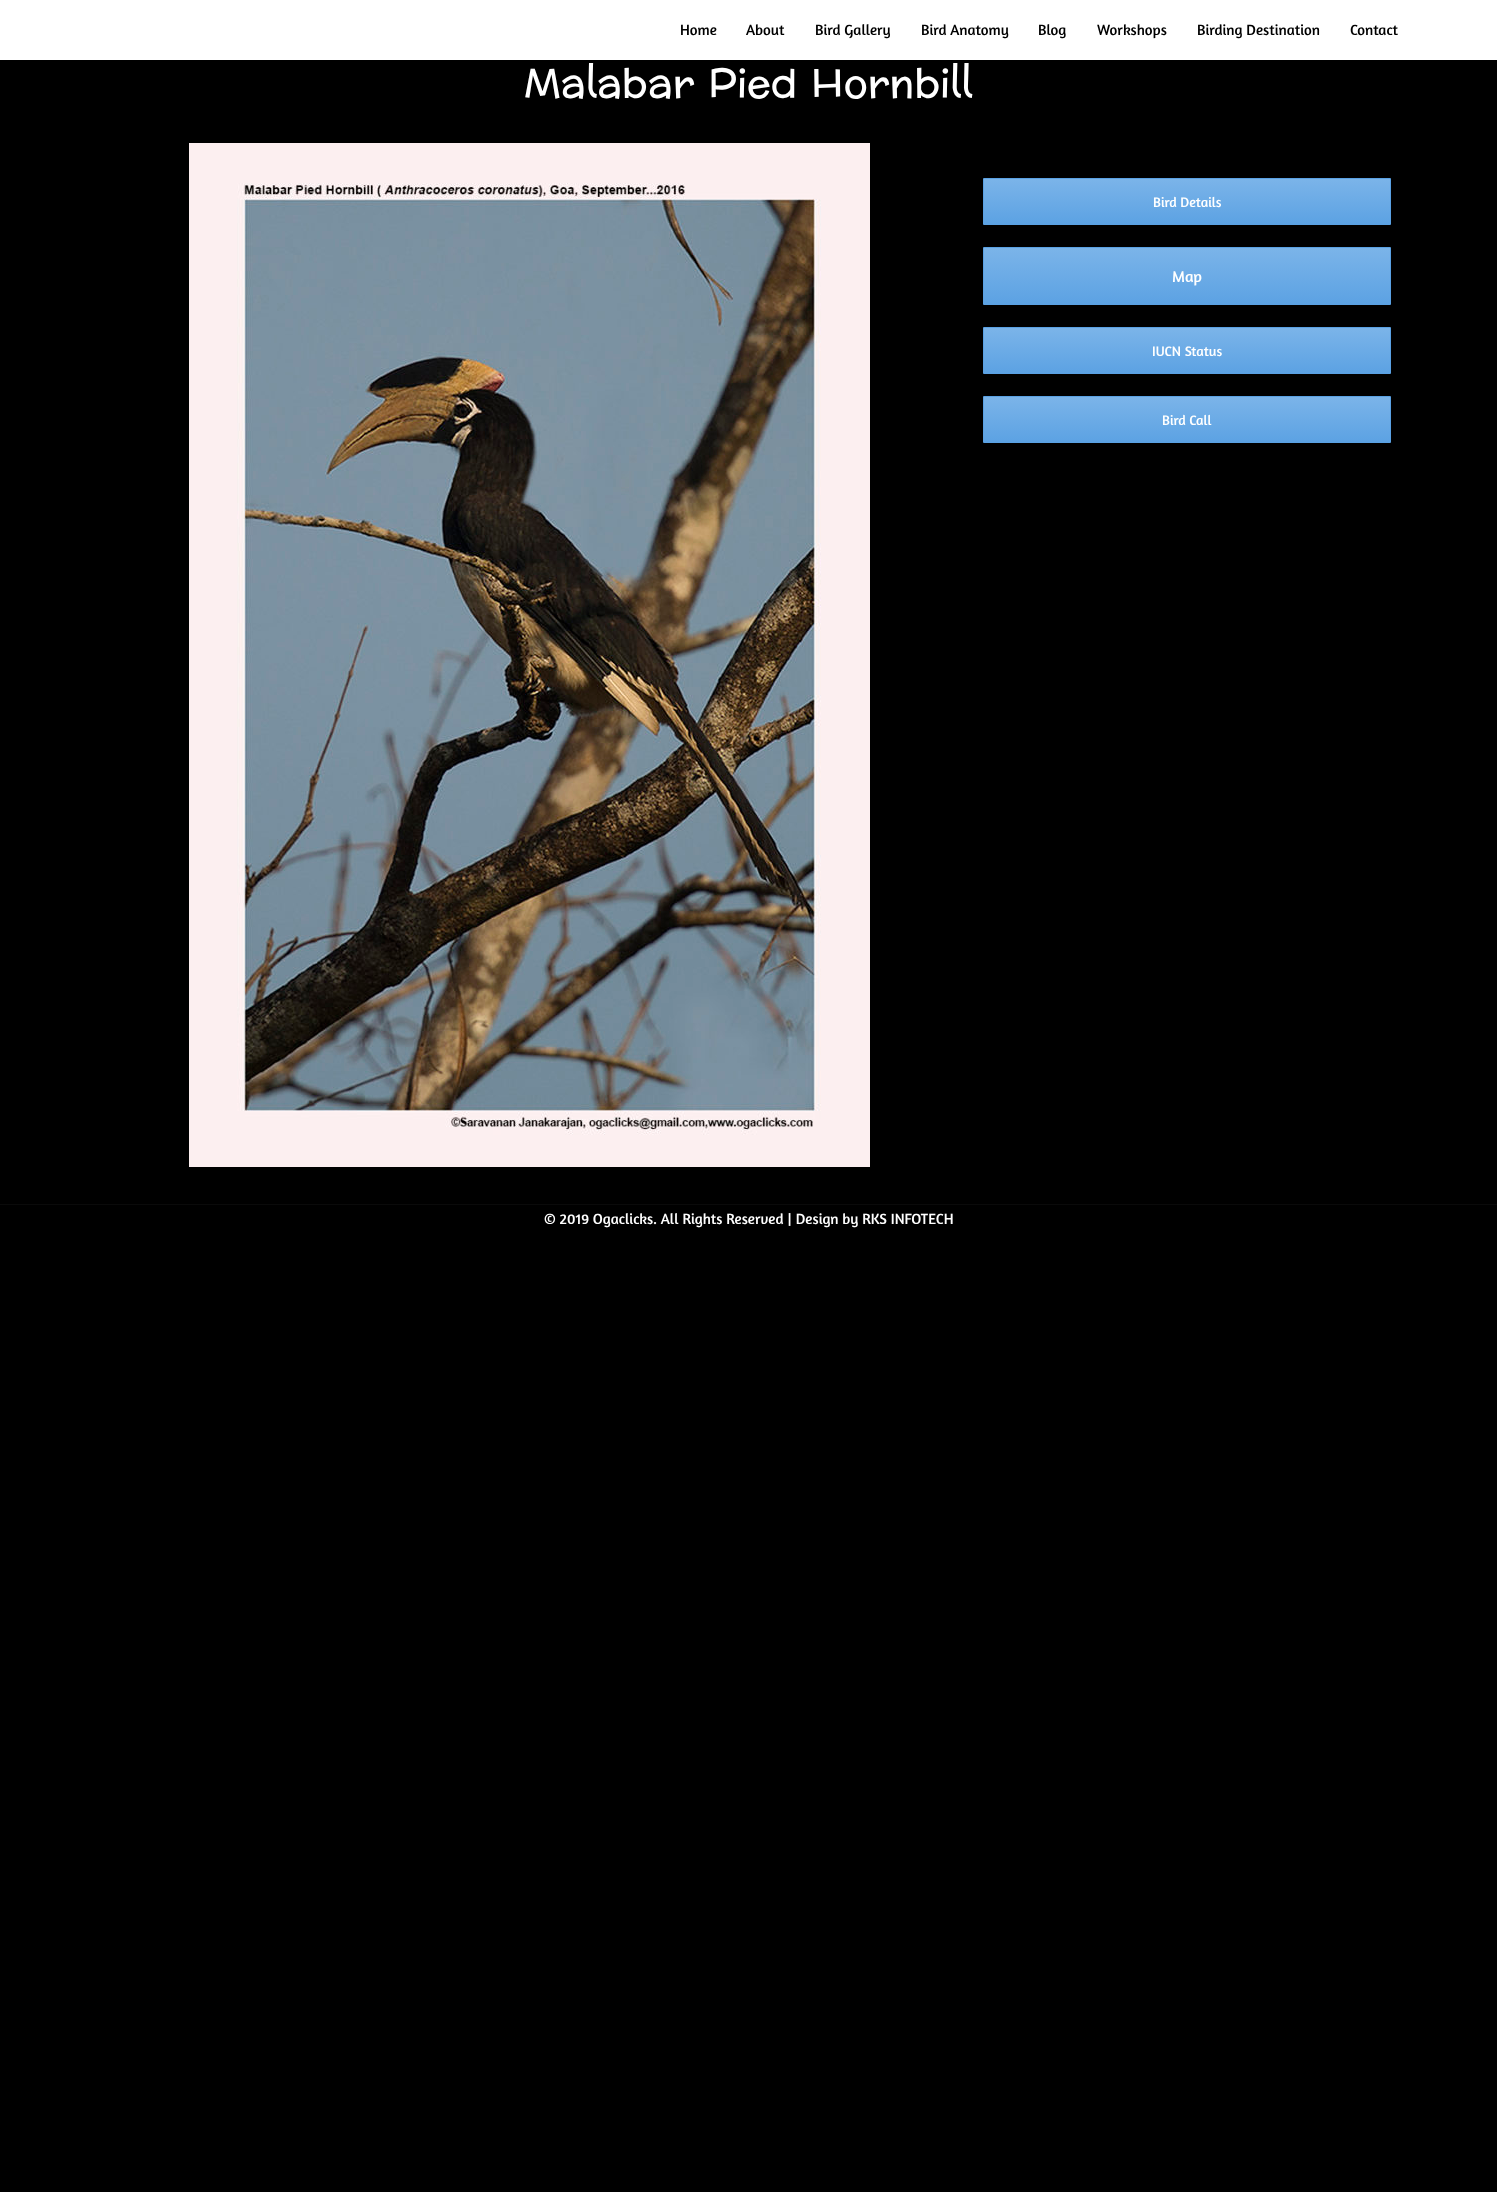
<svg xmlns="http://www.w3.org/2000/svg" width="1497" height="2192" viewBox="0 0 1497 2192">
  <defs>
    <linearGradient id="g1" gradientUnits="userSpaceOnUse" x1="1187" y1="179" x2="1187" y2="224"><stop offset="0" stop-color="#7bb4e9"/><stop offset="1" stop-color="#5ca2e3"/></linearGradient>
    <linearGradient id="g2" gradientUnits="userSpaceOnUse" x1="1187" y1="248" x2="1187" y2="304"><stop offset="0" stop-color="#7bb4e9"/><stop offset="1" stop-color="#5ca2e3"/></linearGradient>
    <linearGradient id="g3" gradientUnits="userSpaceOnUse" x1="1187" y1="328" x2="1187" y2="373"><stop offset="0" stop-color="#7bb4e9"/><stop offset="1" stop-color="#5ca2e3"/></linearGradient>
    <linearGradient id="g4" gradientUnits="userSpaceOnUse" x1="1187" y1="397" x2="1187" y2="442"><stop offset="0" stop-color="#7bb4e9"/><stop offset="1" stop-color="#5ca2e3"/></linearGradient>
  </defs>
  <rect width="100%" height="100%" fill="#000"/>
  <path d="M0 0h1497v60H0z" fill="#fff"/>
  <image x="189" y="143" width="681" height="1024" href="img/1.png"/>
  <path d="M984 179h406v45H984z" fill="url(#g1)"/>
  <path d="M983.5 178.5h407v46H983.5z" fill="none" stroke="#5aa1e3"/>
  <path d="M984 248h406v56H984z" fill="url(#g2)"/>
  <path d="M983.5 247.5h407v57H983.5z" fill="none" stroke="#5aa1e3"/>
  <path d="M984 328h406v45H984z" fill="url(#g3)"/>
  <path d="M983.5 327.5h407v46H983.5z" fill="none" stroke="#5aa1e3"/>
  <path d="M984 397h406v45H984z" fill="url(#g4)"/>
  <path d="M983.5 396.5h407v46H983.5z" fill="none" stroke="#5aa1e3"/>
  <path d="M0 1204h1497v1H0z" fill="#0a0a0a"/>
  <g font-family="Amaranth" font-size="15" fill="#000">
    <text x="680" y="35">Home</text>
    <text x="746" y="35">About</text>
    <text x="815" y="35">Bird Gallery</text>
    <text x="921" y="35">Bird Anatomy</text>
    <text x="1038" y="35">Blog</text>
    <text x="1097" y="35">Workshops</text>
    <text x="1197" y="35">Birding Destination</text>
    <text x="1350" y="35">Contact</text>
  </g>
  <text x="524" y="97" font-family="Preahvihear" font-size="40" fill="#fff">Malabar Pied Hornbill</text>
  <text x="1153" y="207" font-family="Amaranth" font-size="14" fill="#fff">Bird Details</text>
  <text x="1172" y="282" font-family="Amaranth" font-size="16" fill="#fff">Map</text>
  <g font-family="Amaranth" font-size="14" fill="#fff">
    <text x="1152" y="356">IUCN Status</text>
    <text x="1162" y="425">Bird Call</text>
  </g>
  <text x="544" y="1224" font-family="Amaranth" font-size="15" fill="#fff">© 2019 Ogaclicks. All Rights Reserved | Design by RKS INFOTECH</text>
</svg>
